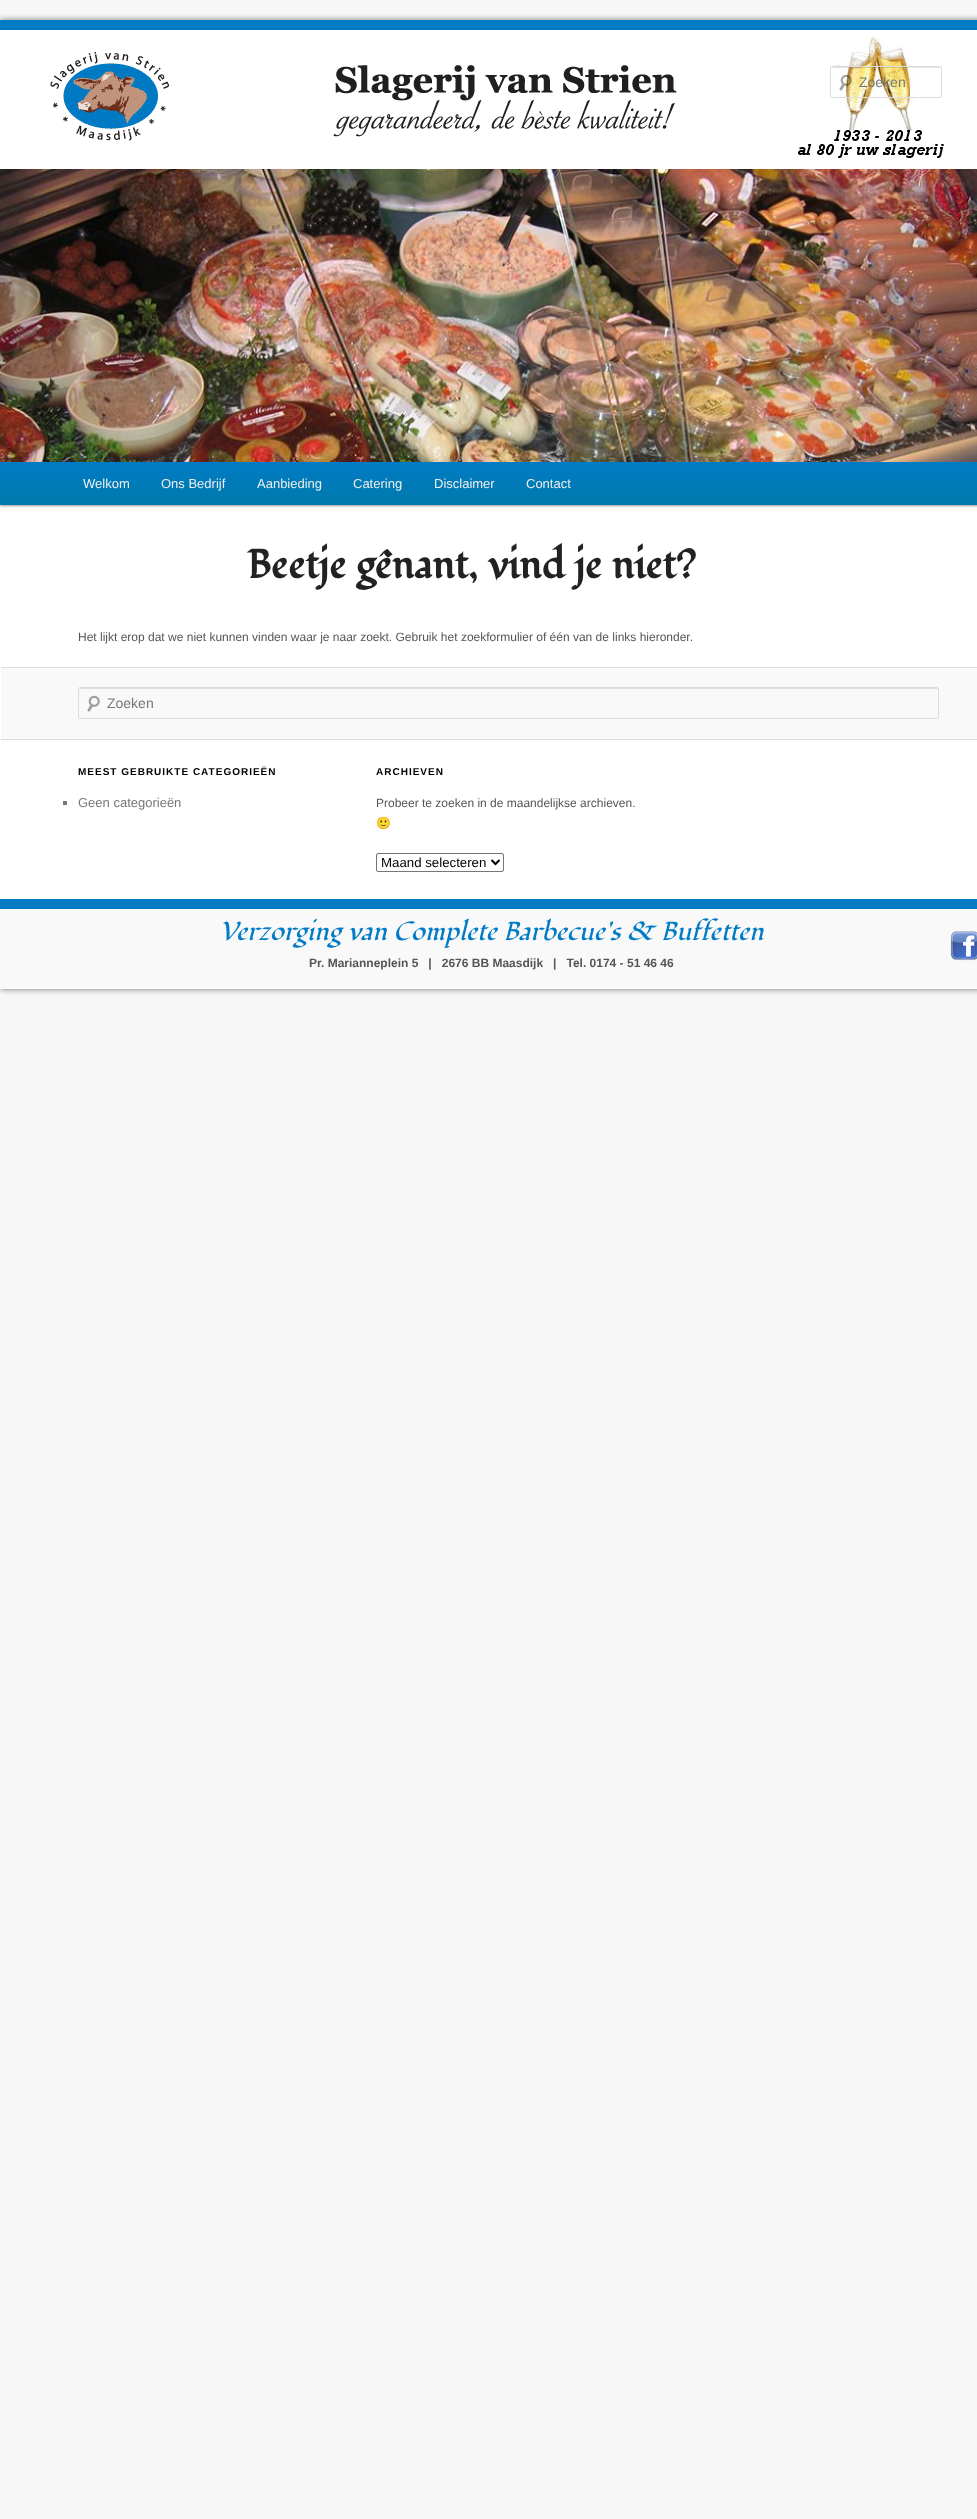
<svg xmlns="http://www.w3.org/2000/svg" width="977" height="2519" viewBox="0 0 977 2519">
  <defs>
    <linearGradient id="g1" gradientUnits="userSpaceOnUse" x1="510" y1="462" x2="510" y2="505"><stop offset="0" stop-color="#007bc6"/><stop offset="1" stop-color="#007aaa"/></linearGradient>
  </defs>
  <rect width="100%" height="100%" fill="#f7f7f7"/>
  <rect y="20" width="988" height="969" rx="2" fill="#757575" filter="blur(3px)"/>
  <path d="M0 30h977v869H0z" fill="#fff"/>
  <path d="M0 20h977v10H0z" fill="#007bc6"/>
  <image x="50" y="35" width="894" height="123" href="img/1.png"/>
  <image x="839" y="74" width="13" height="17" href="img/2.png"/>
  <path d="M832 68H941V69L940 67H850C846 67 831 62 831 69C831 68 831 68 832 68Z" fill="#0000001a"/>
  <rect x="830.5" y="66.5" width="111" height="31" rx="1.5" fill="none" stroke="#ddd"/>
  <path d="M0 463h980v43H0z" fill="#00000066" filter="blur(1px)"/>
  <image x="0" y="169" width="977" height="293" href="img/3.png"/>
  <path d="M0 462h977v43H0z" fill="url(#g1)"/>
  <path d="M1 668h976v71H1z" fill="#f9f9f9"/>
  <path d="M1 667h976v1H1z" fill="#ddd"/>
  <path d="M1 739h976v1H1z" fill="#ddd"/>
  <image x="87" y="695" width="13" height="17" href="img/4.png"/>
  <path d="M80 688L79 689H937L938 690C938 689 938 688 937 688Z" fill="#e0e0e0"/>
  <rect x="78.5" y="687.5" width="860" height="31" rx="1.5" fill="none" stroke="#ddd"/>
  <path d="M63 801h4v4H63z" fill="#777"/>
  <rect x="376.5" y="853.5" width="127" height="18" rx="1.5" fill="none" stroke="#767676"/>
  <path d="M491.5 860L495.5 864L499.5 860" fill="none" stroke="#000" stroke-width="2"/>
  <path d="M0 909h977v80H0z" fill="#f9f9f9"/>
  <path d="M0 899h977v10H0z" fill="#007bc6"/>
  <image x="950" y="931" width="27" height="30" href="img/5.png"/>
  <text x="859" y="87" font-family="Liberation Sans" font-size="14" fill="#777">Zoeken</text>
  <g font-family="Liberation Sans" font-size="13" fill="#eee">
    <text x="83" y="488">Welkom</text>
    <text x="161" y="488">Ons Bedrijf</text>
    <text x="257" y="488">Aanbieding</text>
    <text x="353" y="488">Catering</text>
    <text x="434" y="488">Disclaimer</text>
    <text x="526" y="488">Contact</text>
  </g>
  <text x="247" y="578" font-family="Fondamento" font-size="40" font-weight="bold" fill="#222">Beetje gênant, vind je niet?</text>
  <text x="78" y="641" font-family="Liberation Sans" font-size="12" fill="#555">Het lijkt erop dat we niet kunnen vinden waar je naar zoekt. Gebruik het zoekformulier of één van de links hieronder.</text>
  <text x="107" y="708" font-family="Liberation Sans" font-size="14" fill="#777">Zoeken</text>
  <text x="78" y="775" font-family="Liberation Sans" font-size="10" font-weight="bold" letter-spacing="1" fill="#000">MEEST GEBRUIKTE CATEGORIEËN</text>
  <text x="78" y="807" font-family="Liberation Sans" font-size="13" fill="#777">Geen categorieën</text>
  <text x="376" y="775" font-family="Liberation Sans" font-size="10" font-weight="bold" letter-spacing="1" fill="#000">ARCHIEVEN</text>
  <text x="376" y="807" font-family="Liberation Sans" font-size="12" fill="#555">Probeer te zoeken in de maandelijkse archieven.</text>
  <text x="376" y="827" font-family="Noto Color Emoji" font-size="12" fill="#555">🙂</text>
  <text x="381" y="867" font-family="Liberation Sans" font-size="13.25" fill="#000">Maand selecteren</text>
  <text x="219" y="940" font-family="Fondamento" font-size="26" font-style="italic" fill="#007bc6">Verzorging van Complete Barbecue's &amp; Buffetten</text>
  <text x="309" y="967" font-family="Liberation Sans" font-size="12" font-weight="bold" fill="#555" xml:space="preserve">Pr. Marianneplein 5   |   2676 BB Maasdijk   |   Tel. 0174 - 51 46 46</text>
</svg>
